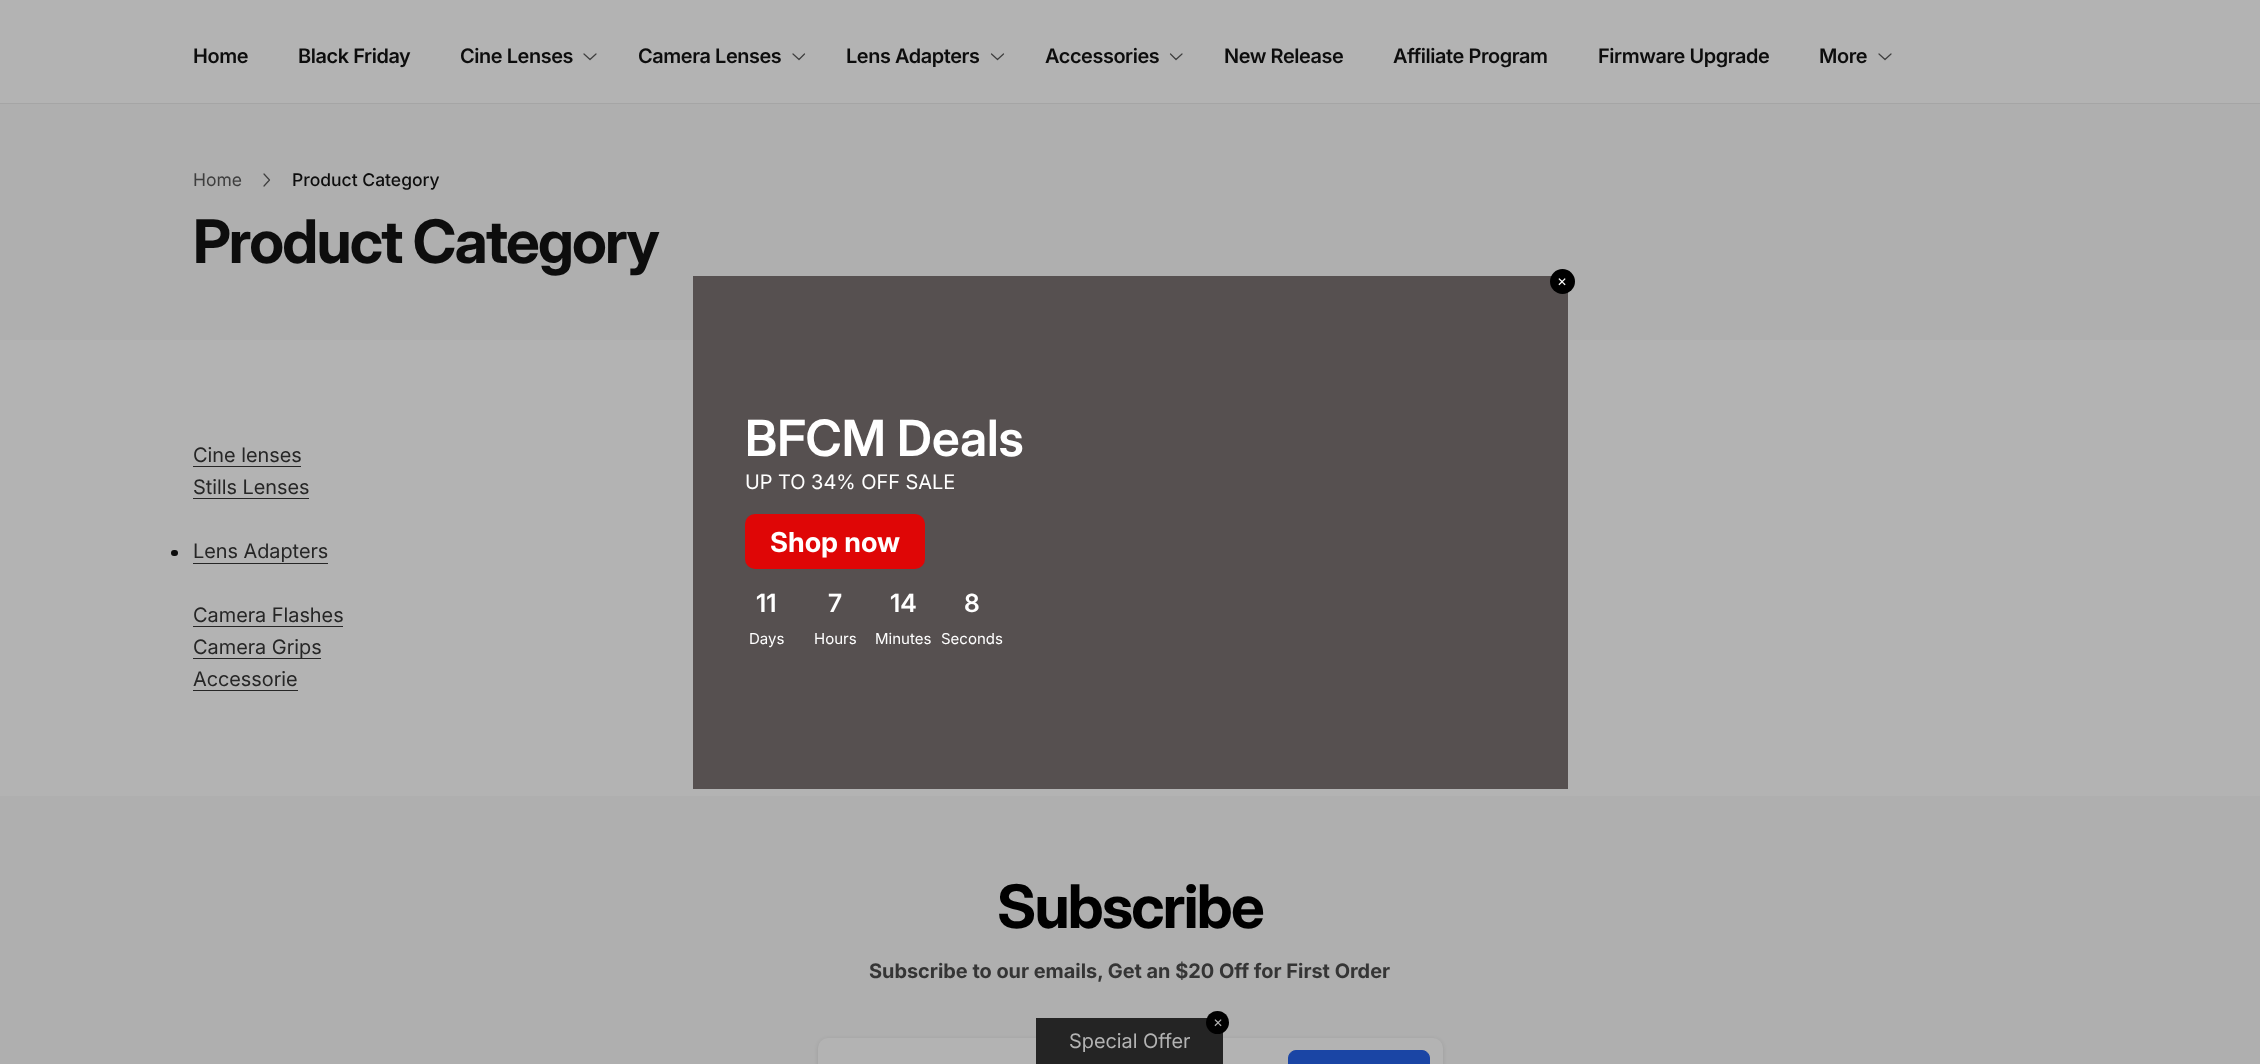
<svg xmlns="http://www.w3.org/2000/svg" width="2260" height="1064" viewBox="0 0 2260 1064">
  <rect width="100%" height="100%" fill="#b3b3b3"/>
  <path d="M0 103h2260v1H0z" fill="#a5a5a5"/>
  <path d="M596 54L590 59.5L584 54" fill="none" stroke="#3e3e3e" stroke-width="1.2" stroke-linecap="round" stroke-linejoin="round"/>
  <path d="M804.5 54L799 59.5L793 54" fill="none" stroke="#3e3e3e" stroke-width="1.2" stroke-linecap="round" stroke-linejoin="round"/>
  <path d="M1003.5 54L997.5 59.5L991.5 54" fill="none" stroke="#3e3e3e" stroke-width="1.2" stroke-linecap="round" stroke-linejoin="round"/>
  <path d="M1182 54L1176 59.5L1170.5 54" fill="none" stroke="#3e3e3e" stroke-width="1.2" stroke-linecap="round" stroke-linejoin="round"/>
  <path d="M1891 54L1885 59.5L1879 54" fill="none" stroke="#3e3e3e" stroke-width="1.2" stroke-linecap="round" stroke-linejoin="round"/>
  <path d="M0 104h2260v236H0z" fill="#afafaf"/>
  <path d="M264 174L269.5 180L264 186" fill="none" stroke="#3e3e3e" stroke-width="1.2" stroke-linecap="round" stroke-linejoin="round"/>
  <path d="M193 466h108v1H193z" fill="#262626"/>
  <path d="M193 498h116v1H193z" fill="#262626"/>
  <rect x="171" y="550" width="7" height="6" rx="3" fill="#0d0d0d"/>
  <path d="M193 563h135v1H193z" fill="#262626"/>
  <path d="M193 626h150v1H193z" fill="#262626"/>
  <path d="M193 658h128v1H193z" fill="#262626"/>
  <path d="M193 690h105v1H193z" fill="#262626"/>
  <path d="M693 276h875v513H693z" fill="#565050"/>
  <circle cx="1562.5" cy="281.5" r="12.5" fill="#000"/>
  <rect x="745" y="514" width="180" height="55" rx="10" fill="#df0606"/>
  <path d="M0 796h2260v268H0z" fill="#afafaf"/>
  <rect x="818" y="1039" width="625" height="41" rx="10" fill="#0000001a" filter="blur(2px)"/>
  <rect x="818" y="1038" width="625" height="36" rx="10" fill="#b3b3b3"/>
  <path d="M1036 1018h187v46H1036z" fill="#242424"/>
  <circle cx="1217.5" cy="1022.5" r="11.5" fill="#000"/>
  <rect x="1288.5" y="1050.5" width="141" height="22" rx="7.5" fill="#1a45a5" stroke="#1a45a5"/>
  <g font-family="Inter" font-size="20" font-weight="600" letter-spacing="-0.4" fill="#0d0d0d">
    <text x="193" y="63">Home</text>
    <text x="298" y="63">Black Friday</text>
    <text x="460" y="63">Cine Lenses</text>
    <text x="638" y="63">Camera Lenses</text>
    <text x="846" y="63">Lens Adapters</text>
    <text x="1045" y="63">Accessories</text>
    <text x="1224" y="63">New Release</text>
    <text x="1393" y="63">Affiliate Program</text>
    <text x="1598" y="63">Firmware Upgrade</text>
    <text x="1819" y="63">More</text>
  </g>
  <text x="193" y="186" font-family="'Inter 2'" font-size="17.5" fill="#3e3e3e">Home</text>
  <text x="292" y="186" font-family="Inter" font-size="17.5" font-weight="500" fill="#0d0d0d">Product Category</text>
  <text x="193" y="263" font-family="Inter" font-size="60" font-weight="bold" letter-spacing="-1.75" fill="#0d0d0d">Product Category</text>
  <g font-family="Inter" font-size="20" fill="#262626">
    <text x="193" y="462">Cine lenses</text>
    <text x="193" y="494">Stills Lenses</text>
    <text x="193" y="558">Lens Adapters</text>
    <text x="193" y="622">Camera Flashes</text>
    <text x="193" y="654">Camera Grips</text>
    <text x="193" y="686">Accessorie</text>
  </g>
  <text x="1557" y="286" font-family="DejaVu Sans" font-size="12" fill="#fff">✕</text>
  <text x="745" y="456" font-family="'Inter 2'" font-size="50" font-weight="600" fill="#fff">BFCM Deals</text>
  <text x="745" y="489" font-family="Inter" font-size="20" fill="#fff">UP TO 34% OFF SALE</text>
  <text x="770" y="552" font-family="'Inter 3'" font-size="27.5" font-weight="bold" fill="#fff">Shop now</text>
  <text x="756" y="612" font-family="'Inter 3'" font-size="25" font-weight="600" fill="#fff">11</text>
  <text x="749" y="644" font-family="'Inter 2'" font-size="15" fill="#fff">Days</text>
  <text x="828" y="612" font-family="'Inter 3'" font-size="25" font-weight="600" fill="#fff">7</text>
  <text x="814" y="644" font-family="'Inter 2'" font-size="15" fill="#fff">Hours</text>
  <text x="890" y="612" font-family="'Inter 3'" font-size="25" font-weight="600" fill="#fff">14</text>
  <text x="875" y="644" font-family="'Inter 2'" font-size="15" fill="#fff">Minutes</text>
  <text x="964" y="612" font-family="'Inter 3'" font-size="25" font-weight="600" fill="#fff">8</text>
  <text x="941" y="644" font-family="'Inter 2'" font-size="15" fill="#fff">Seconds</text>
  <text x="1213" y="1027" font-family="DejaVu Sans" font-size="12" fill="#b3b3b3">✕</text>
  <text x="1069" y="1048" font-family="Inter" font-size="20" fill="#b3b3b3">Special Offer</text>
  <text x="997" y="928" font-family="Inter" font-size="60" font-weight="bold" letter-spacing="-1.75" fill="#000">Subscribe</text>
  <text x="869" y="978" font-family="'Inter 2'" font-size="20" font-weight="bold" fill="#353535">Subscribe to our emails, Get an $20 Off for First Order</text>
</svg>
